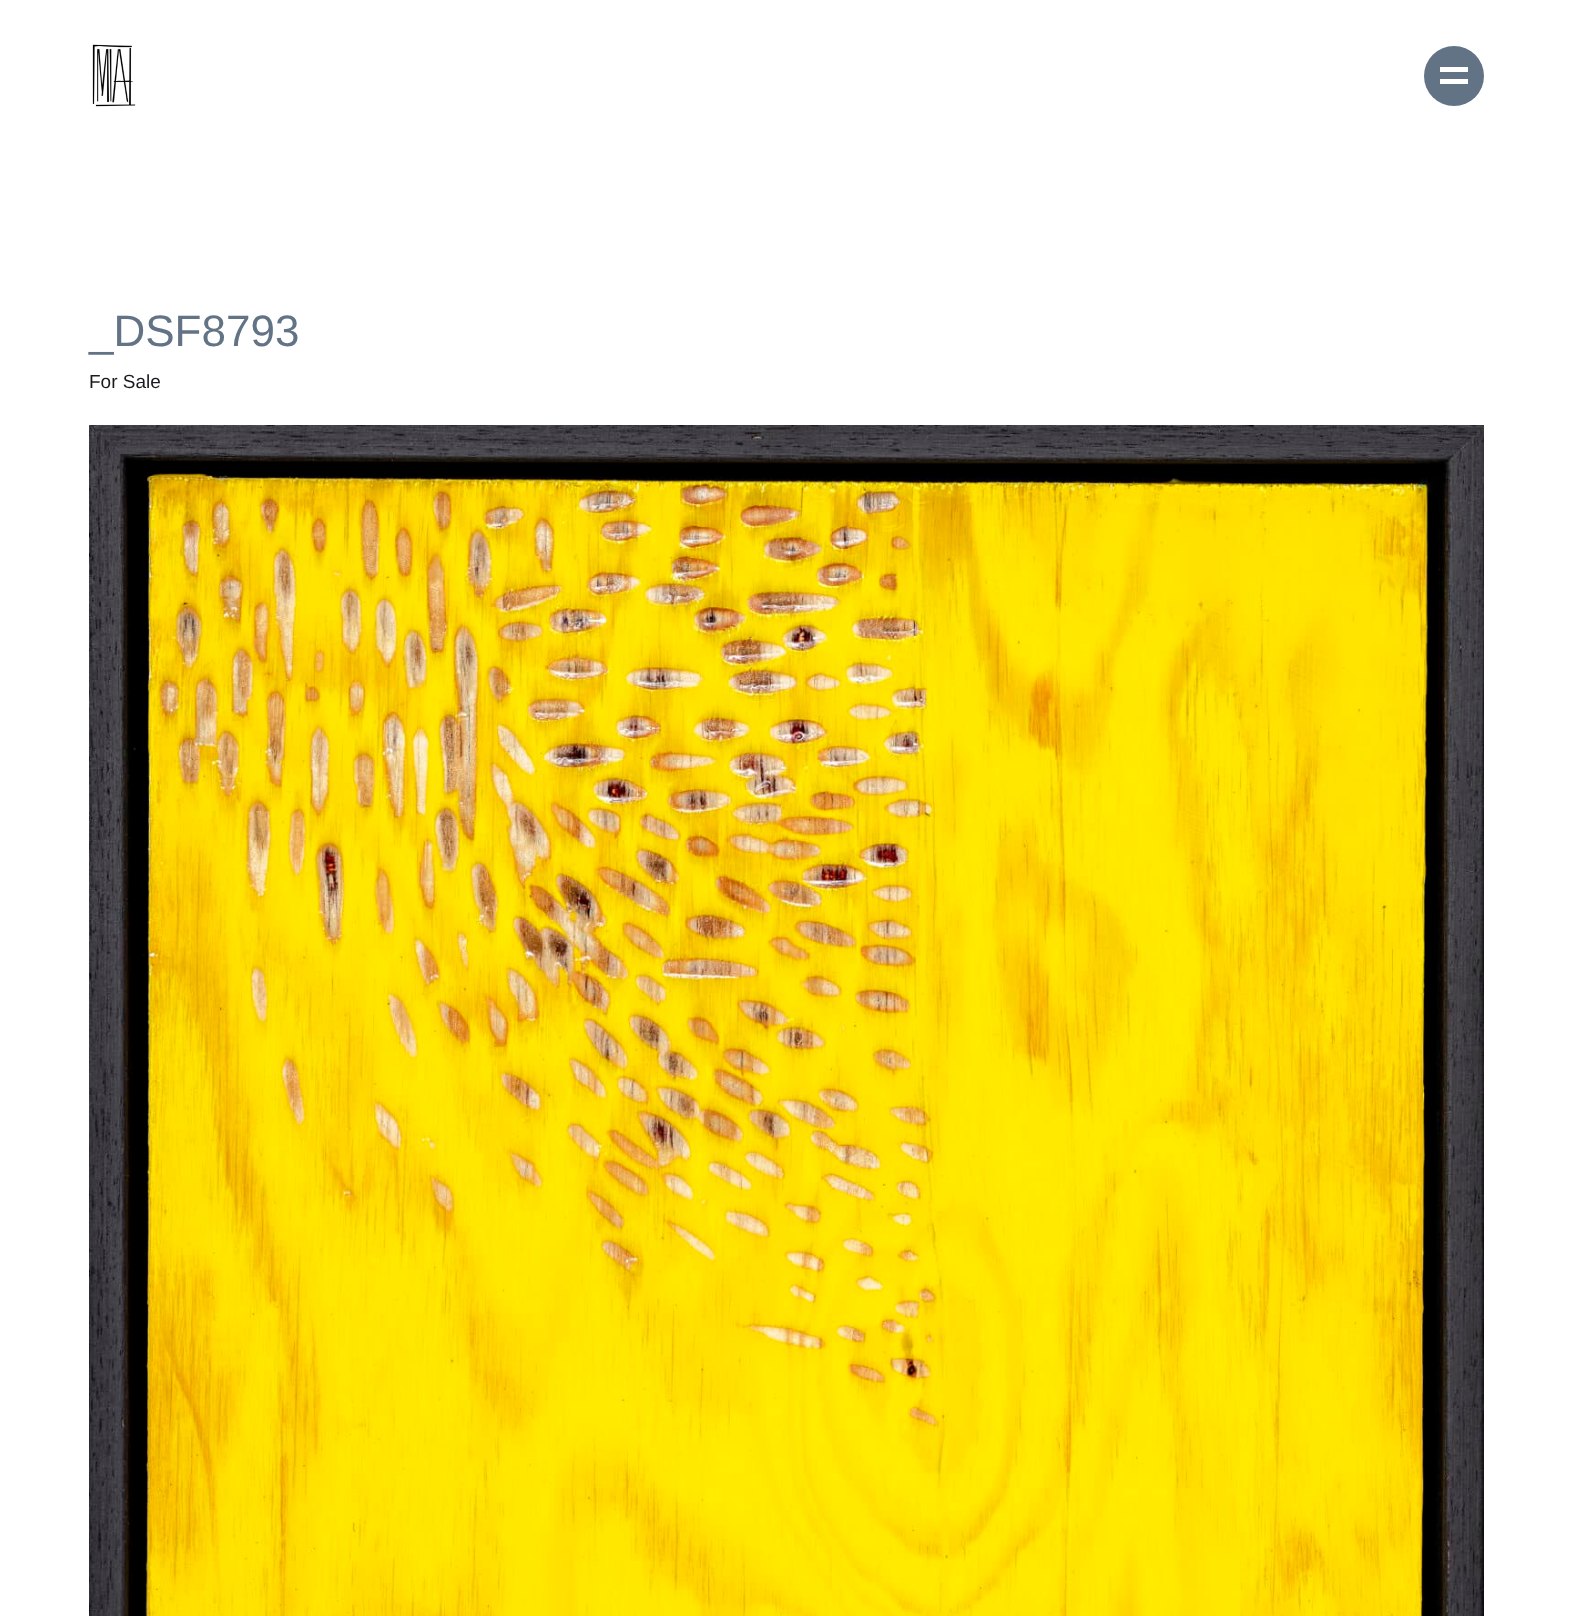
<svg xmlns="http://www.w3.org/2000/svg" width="1573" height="1616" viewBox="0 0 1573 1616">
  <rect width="100%" height="100%" fill="#fff"/>
  <image x="92" y="44" width="44" height="63" href="img/1.png"/>
  <circle cx="1454" cy="76" r="30" fill="#627385"/>
  <path d="M1440 67h28v5H1440z" fill="#fff"/>
  <path d="M1440 79h28v5H1440z" fill="#fff"/>
  <image x="89" y="425" width="1395" height="1191" href="img/2.png"/>
  <text x="89" y="346" font-family="Liberation Sans" font-size="44" fill="#627385">_DSF8793</text>
  <text x="89" y="388" font-family="Liberation Sans" font-size="19" fill="#1b1a1f">For Sale</text>
</svg>
